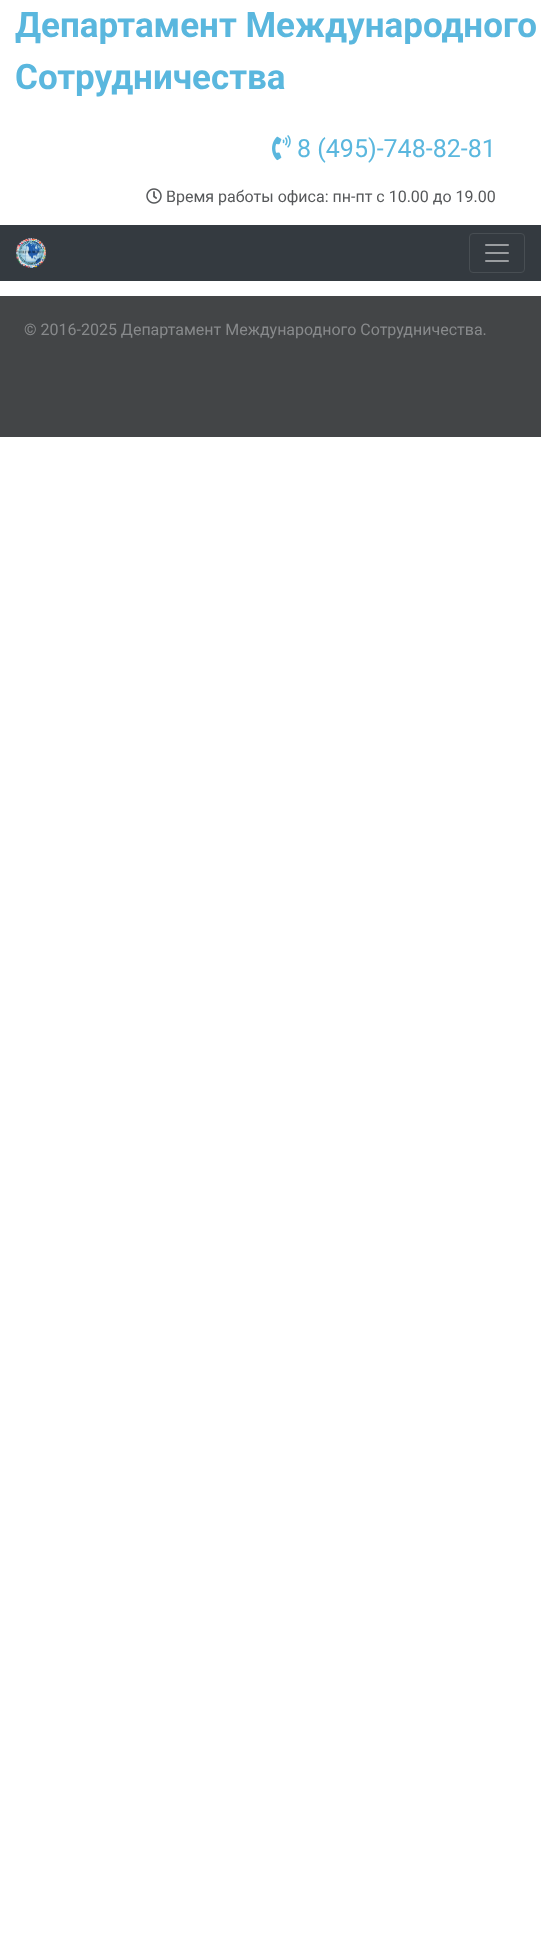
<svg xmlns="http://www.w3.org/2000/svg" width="541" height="1941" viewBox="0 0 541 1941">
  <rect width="100%" height="100%" fill="#fff"/>
  <image x="272" y="135" width="19" height="26" href="img/1.png"/>
  <image x="146" y="188" width="16" height="16" href="img/2.png"/>
  <path d="M0 225h541v56H0z" fill="#343a40"/>
  <image x="16" y="238" width="30" height="30" href="img/3.png"/>
  <rect x="469.5" y="233.5" width="55" height="39" rx="3.5" fill="none" stroke="#484e53"/>
  <image x="485" y="244" width="24" height="18" href="img/4.png"/>
  <path d="M0 296h541v141H0z" fill="#434547"/>
  <g font-family="Roboto" font-size="35" font-weight="bold" fill="#5ab7de">
    <text x="15" y="37">Департамент Международного</text>
    <text x="15" y="89">Сотрудничества</text>
  </g>
  <text x="297" y="157" font-family="Roboto" font-size="25" fill="#5ab7de">8 (495)-748-82-81</text>
  <text x="166" y="202" font-family="Roboto" font-size="16" fill="#56585a">Время работы офиса: пн-пт с 10.00 до 19.00</text>
  <text x="24" y="335" font-family="Roboto" font-size="16" fill="#888a8c">© 2016-2025 Департамент Международного Сотрудничества.</text>
</svg>
